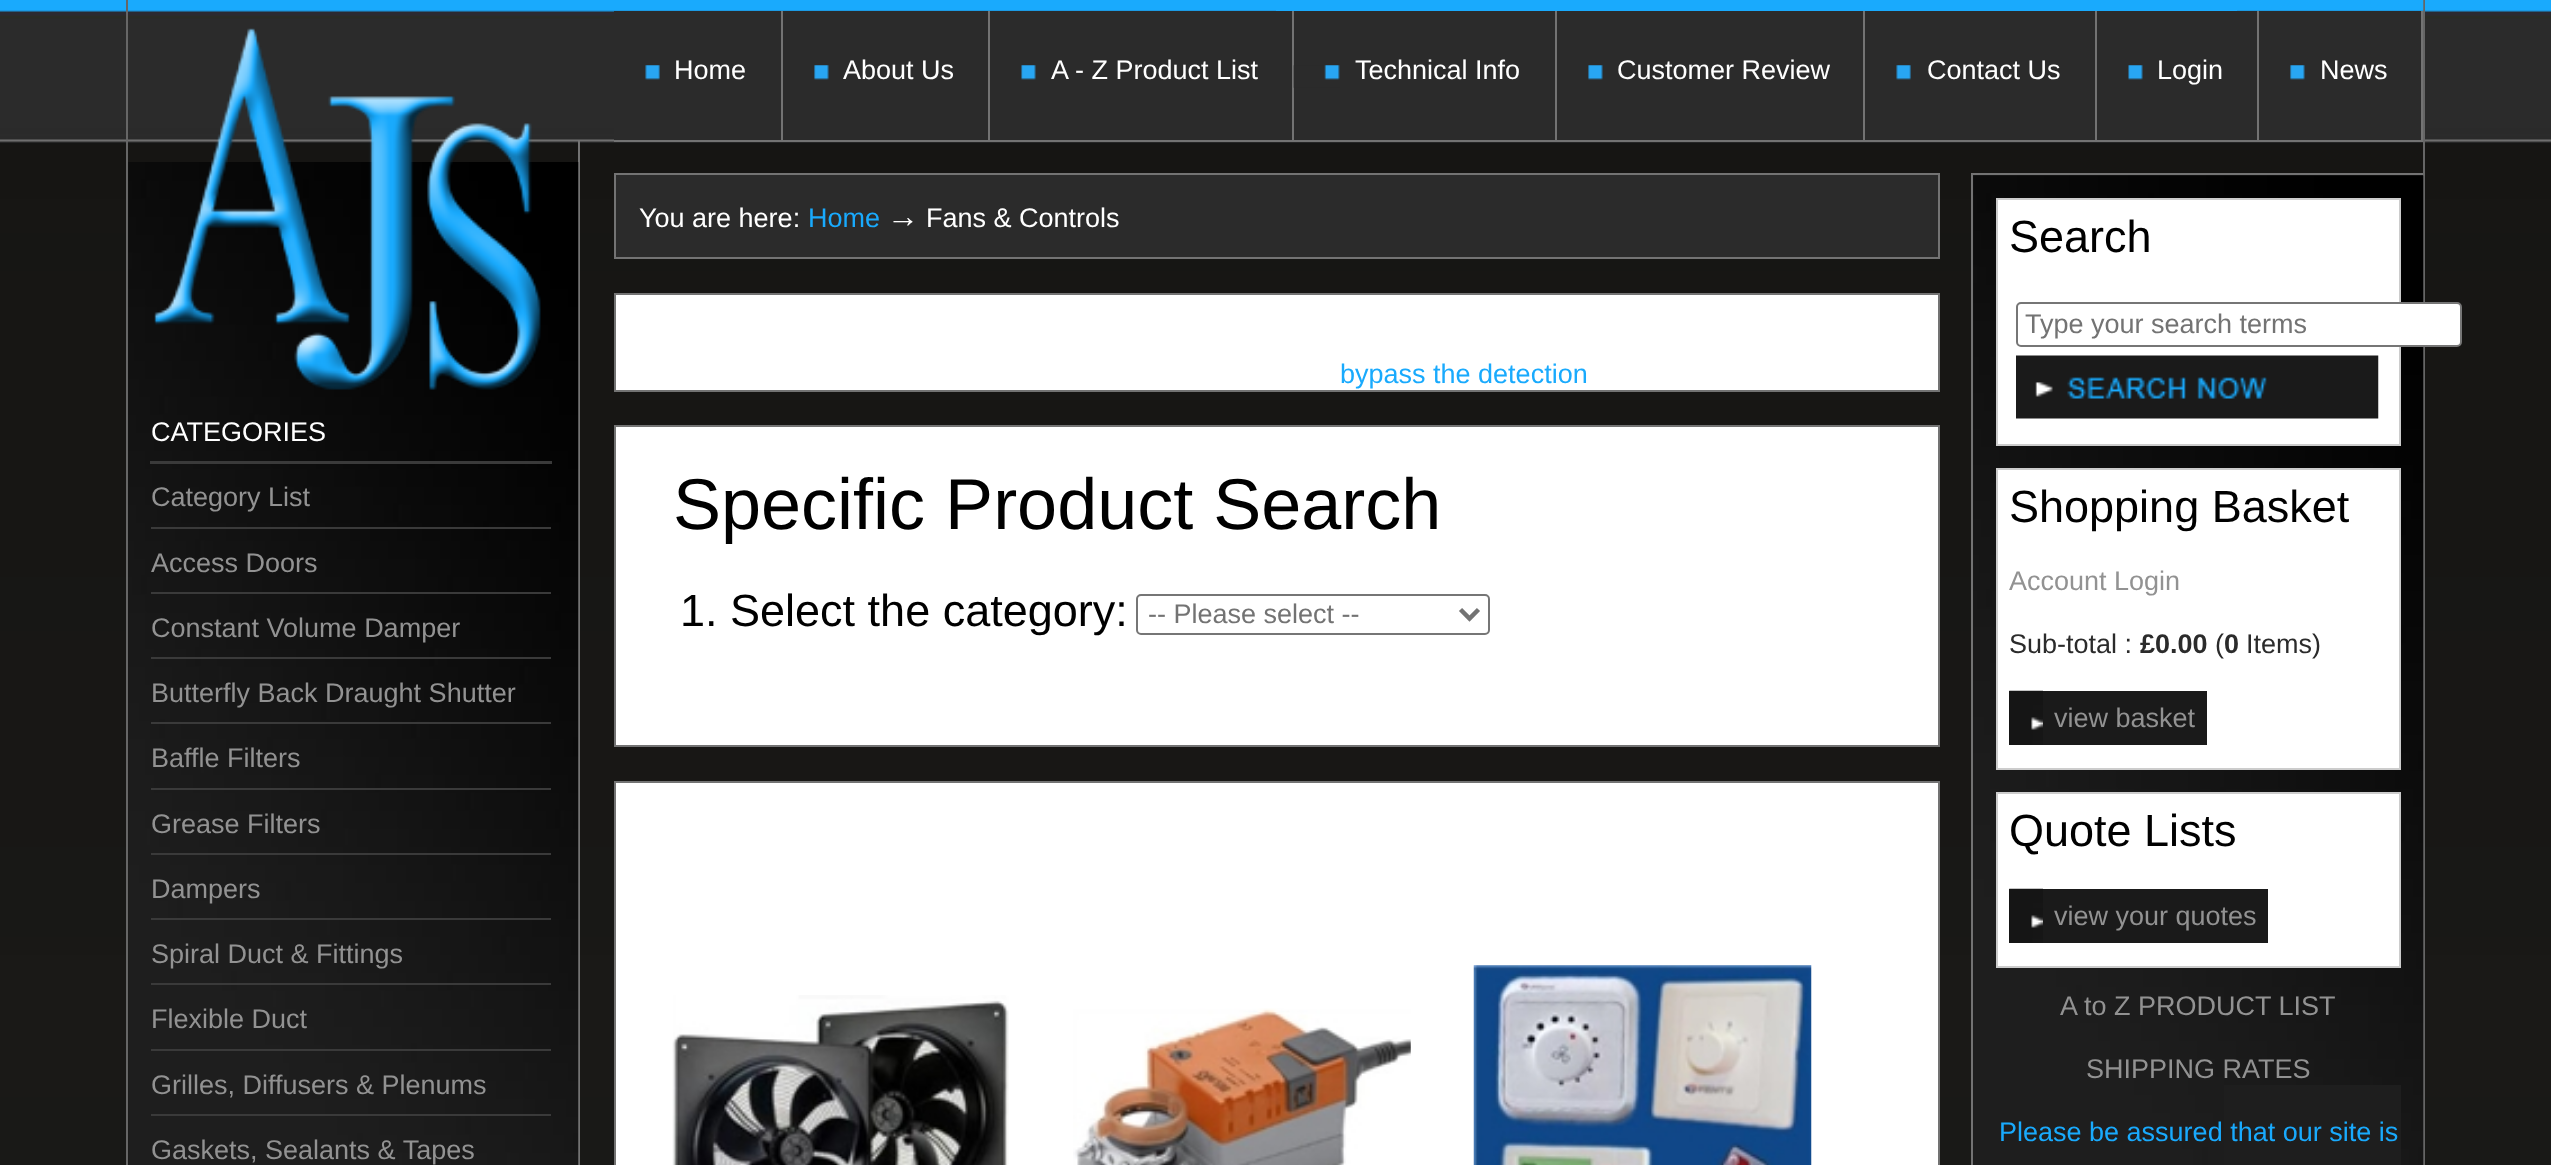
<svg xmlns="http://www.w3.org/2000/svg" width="2551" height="1165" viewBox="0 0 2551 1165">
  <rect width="100%" height="100%" fill="#fff"/>
  <image x="0" y="0" width="2551" height="1165" href="img/1.png"/>
  <path d="M2423 0h2v1165H2423z" fill="#666"/>
  <path d="M126 0h2v1165H126z" fill="#666"/>
  <image x="128" y="0" width="2296" height="12" href="img/2.png"/>
  <path d="M1276 10h961v1H1276z" fill="#19aafd"/>
  <path d="M614 11h167v129H614z" fill="#2b2b2b"/>
  <image x="645" y="65" width="15" height="15" href="img/3.png"/>
  <path d="M781 11h2v131H781z" fill="#737373"/>
  <path d="M614 140h169v2H614z" fill="#737373"/>
  <path d="M783 11h205v129H783z" fill="#2b2b2b"/>
  <image x="814" y="65" width="15" height="15" href="img/4.png"/>
  <path d="M988 11h2v131H988z" fill="#737373"/>
  <path d="M783 140h207v2H783z" fill="#737373"/>
  <path d="M990 11h302v129H990z" fill="#2b2b2b"/>
  <image x="1021" y="65" width="15" height="15" href="img/5.png"/>
  <path d="M1292 11h2v131H1292z" fill="#737373"/>
  <path d="M990 140h304v2H990z" fill="#737373"/>
  <path d="M1294 11h261v129H1294z" fill="#2b2b2b"/>
  <image x="1293" y="65" width="47" height="23" href="img/6.png"/>
  <path d="M1555 11h2v131H1555z" fill="#737373"/>
  <path d="M1294 140h263v2H1294z" fill="#737373"/>
  <path d="M1557 11h306v129H1557z" fill="#2b2b2b"/>
  <image x="1588" y="65" width="15" height="15" href="img/4.png"/>
  <path d="M1863 11h2v131H1863z" fill="#737373"/>
  <path d="M1557 140h308v2H1557z" fill="#737373"/>
  <path d="M1865 11h230v129H1865z" fill="#2b2b2b"/>
  <image x="1896" y="65" width="15" height="15" href="img/3.png"/>
  <path d="M2095 11h2v131H2095z" fill="#737373"/>
  <path d="M1865 140h232v2H1865z" fill="#737373"/>
  <path d="M2097 11h160v129H2097z" fill="#2b2b2b"/>
  <image x="2128" y="65" width="15" height="15" href="img/5.png"/>
  <path d="M2257 11h2v131H2257z" fill="#737373"/>
  <path d="M2097 140h162v2H2097z" fill="#737373"/>
  <path d="M2259 11h162v129H2259z" fill="#2b2b2b"/>
  <image x="2290" y="65" width="15" height="15" href="img/4.png"/>
  <path d="M2421 11h2v131H2421z" fill="#737373"/>
  <path d="M2259 140h164v2H2259z" fill="#737373"/>
  <path d="M578 140h2v1025H578z" fill="#737373"/>
  <image x="128" y="162" width="451" height="1003" href="img/7.png"/>
  <image x="154" y="28" width="387" height="362" href="img/8.png"/>
  <path d="M150 461h402v3H150z" fill="#3a3a3a"/>
  <path d="M151 527h400v2H151z" fill="#3a3a3a"/>
  <path d="M151 592h400v2H151z" fill="#3a3a3a"/>
  <path d="M151 657h400v2H151z" fill="#3a3a3a"/>
  <path d="M151 722h400v2H151z" fill="#3a3a3a"/>
  <path d="M151 788h400v2H151z" fill="#3a3a3a"/>
  <path d="M151 853h400v2H151z" fill="#3a3a3a"/>
  <path d="M151 918h400v2H151z" fill="#3a3a3a"/>
  <path d="M151 983h400v2H151z" fill="#3a3a3a"/>
  <path d="M151 1049h400v2H151z" fill="#3a3a3a"/>
  <path d="M151 1114h400v2H151z" fill="#3a3a3a"/>
  <path d="M615 174h1324v84H615z" fill="#2b2b2b" stroke="#737373" stroke-width="2"/>
  <path d="M615 294h1324v97H615z" fill="#fff" stroke="#737373" stroke-width="2"/>
  <path d="M615 426h1324v320H615z" fill="#fff" stroke="#737373" stroke-width="2"/>
  <rect x="1137" y="595" width="352" height="39" rx="4" fill="none" stroke="#767676" stroke-width="2"/>
  <path d="M1460.5 609.5L1469.5 618.5L1478.5 609.5" fill="none" stroke="#737373" stroke-width="4.5"/>
  <path d="M615 782h1324v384H615z" fill="#fff" stroke="#737373" stroke-width="2"/>
  <image x="672" y="995" width="337" height="170" href="img/9.png"/>
  <image x="1073" y="1008" width="338" height="157" href="img/10.png"/>
  <image x="1473" y="965" width="339" height="200" href="img/11.png"/>
  <path d="M1973 175h450v990H1973z" fill="#1e1e1e"/>
  <image x="1973" y="175" width="451" height="990" href="img/12.png"/>
  <path d="M1971 173h452v2H1971z" fill="#737373"/>
  <path d="M1971 173h2v992H1971z" fill="#737373"/>
  <path d="M1997 199h403v246H1997z" fill="#fff" stroke="#ccc" stroke-width="2"/>
  <rect x="2017" y="303" width="444" height="43" rx="4" fill="#fff" stroke="#767676" stroke-width="2"/>
  <image x="2016" y="355" width="363" height="64" href="img/13.png"/>
  <path d="M1997 469h403v300H1997z" fill="#fff" stroke="#ccc" stroke-width="2"/>
  <path d="M2009 691h198v54H2009z" fill="#1a1a1a"/>
  <image x="2009" y="690" width="34" height="55" href="img/14.png"/>
  <path d="M1997 793h403v174H1997z" fill="#fff" stroke="#ccc" stroke-width="2"/>
  <path d="M2009 889h259v54H2009z" fill="#1a1a1a"/>
  <image x="2009" y="888" width="34" height="55" href="img/14.png"/>
  <path d="M2224 1085h177v80H2224z" fill="#1e1e1e"/>
  <g font-family="Liberation Sans" font-size="27" fill="#fff">
    <text x="674" y="79">Home</text>
    <text x="843" y="79">About Us</text>
    <text x="1051" y="79">A - Z Product List</text>
    <text x="1355" y="79">Technical Info</text>
    <text x="1617" y="79">Customer Review</text>
    <text x="1927" y="79">Contact Us</text>
    <text x="2157" y="79">Login</text>
    <text x="2320" y="79">News</text>
    <text x="151" y="441">CATEGORIES</text>
  </g>
  <g font-family="Liberation Sans" font-size="27" fill="#929292">
    <text x="151" y="506">Category List</text>
    <text x="151" y="572">Access Doors</text>
    <text x="151" y="637">Constant Volume Damper</text>
    <text x="151" y="702">Butterfly Back Draught Shutter</text>
    <text x="151" y="767">Baffle Filters</text>
    <text x="151" y="833">Grease Filters</text>
    <text x="151" y="898">Dampers</text>
    <text x="151" y="963">Spiral Duct &amp; Fittings</text>
    <text x="151" y="1028">Flexible Duct</text>
    <text x="151" y="1094">Grilles, Diffusers &amp; Plenums</text>
    <text x="151" y="1159">Gaskets, Sealants &amp; Tapes</text>
  </g>
  <text x="639" y="227" font-family="Liberation Sans" font-size="27" fill="#fff">You are here:</text>
  <text x="808" y="227" font-family="Liberation Sans" font-size="27" fill="#19aafd">Home</text>
  <text x="887" y="227" font-family="Liberation Sans" font-size="32" font-weight="bold" fill="#fff">→</text>
  <text x="926" y="227" font-family="Liberation Sans" font-size="27" fill="#fff">Fans &amp; Controls</text>
  <text x="1340" y="383" font-family="Liberation Sans" font-size="27" fill="#19aafd">bypass the detection</text>
  <text x="673" y="529" font-family="Liberation Sans" font-size="72" fill="#000">Specific Product Search</text>
  <text x="680" y="626" font-family="Liberation Sans" font-size="45" fill="#000">1. Select the category:</text>
  <text x="1148" y="623" font-family="Liberation Sans" font-size="27" fill="#737373">-- Please select --</text>
  <text x="2009" y="252" font-family="Liberation Sans" font-size="45" fill="#000">Search</text>
  <text x="2025" y="333" font-family="Liberation Sans" font-size="27" fill="#737373">Type your search terms</text>
  <text x="2009" y="522" font-family="Liberation Sans" font-size="45" fill="#000">Shopping Basket</text>
  <text x="2009" y="590" font-family="Liberation Sans" font-size="27" fill="#929292">Account Login</text>
  <text x="2009" y="653" font-family="Liberation Sans" font-size="27" fill="#2b2b2b">Sub-total :</text>
  <text x="2140" y="653" font-family="Liberation Sans" font-size="27" font-weight="bold" fill="#2b2b2b">£0.00</text>
  <text x="2215" y="653" font-family="Liberation Sans" font-size="27" fill="#2b2b2b">(</text>
  <text x="2224" y="653" font-family="Liberation Sans" font-size="27" font-weight="bold" fill="#2b2b2b">0</text>
  <text x="2246" y="653" font-family="Liberation Sans" font-size="27" fill="#2b2b2b">Items)</text>
  <text x="2054" y="727" font-family="Liberation Sans" font-size="27" fill="#929292">view basket</text>
  <text x="2009" y="846" font-family="Liberation Sans" font-size="45" fill="#000">Quote Lists</text>
  <g font-family="Liberation Sans" font-size="27" fill="#929292">
    <text x="2054" y="925">view your quotes</text>
    <text x="2060" y="1015">A to Z PRODUCT LIST</text>
    <text x="2086" y="1078">SHIPPING RATES</text>
  </g>
  <text x="1999" y="1141" font-family="Liberation Sans" font-size="27" fill="#19aafd">Please be assured that our site is</text>
</svg>
